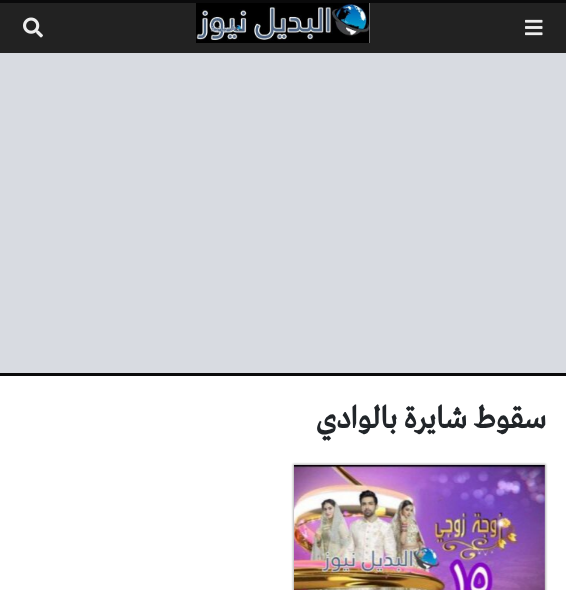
<svg xmlns="http://www.w3.org/2000/svg" width="566" height="590" viewBox="0 0 566 590">
  <rect width="100%" height="100%" fill="#d8dbe1"/>
  <path d="M0 3h566v50H0z" fill="#222"/>
  <path d="M0 0h566v3H0z" fill="#0a0a0b"/>
  <image x="525" y="19" width="18" height="17" href="img/1.png"/>
  <image x="196" y="3" width="174" height="40" href="img/2.png"/>
  <image x="23" y="17" width="20" height="21" href="img/3.png"/>
  <path d="M0 376h566v214H0z" fill="#fff"/>
  <path d="M0 373h566v3H0z" fill="#0a0a0b"/>
  <path d="M293 464h253v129H293z" fill="#0000004d" filter="blur(1px)"/>
  <image x="294" y="465" width="251" height="125" href="img/4.png"/>
  <text x="546" y="428" font-family="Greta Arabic" font-size="32" font-weight="bold" direction="rtl" fill="#212529">سقوط شايرة بالوادي</text>
</svg>
